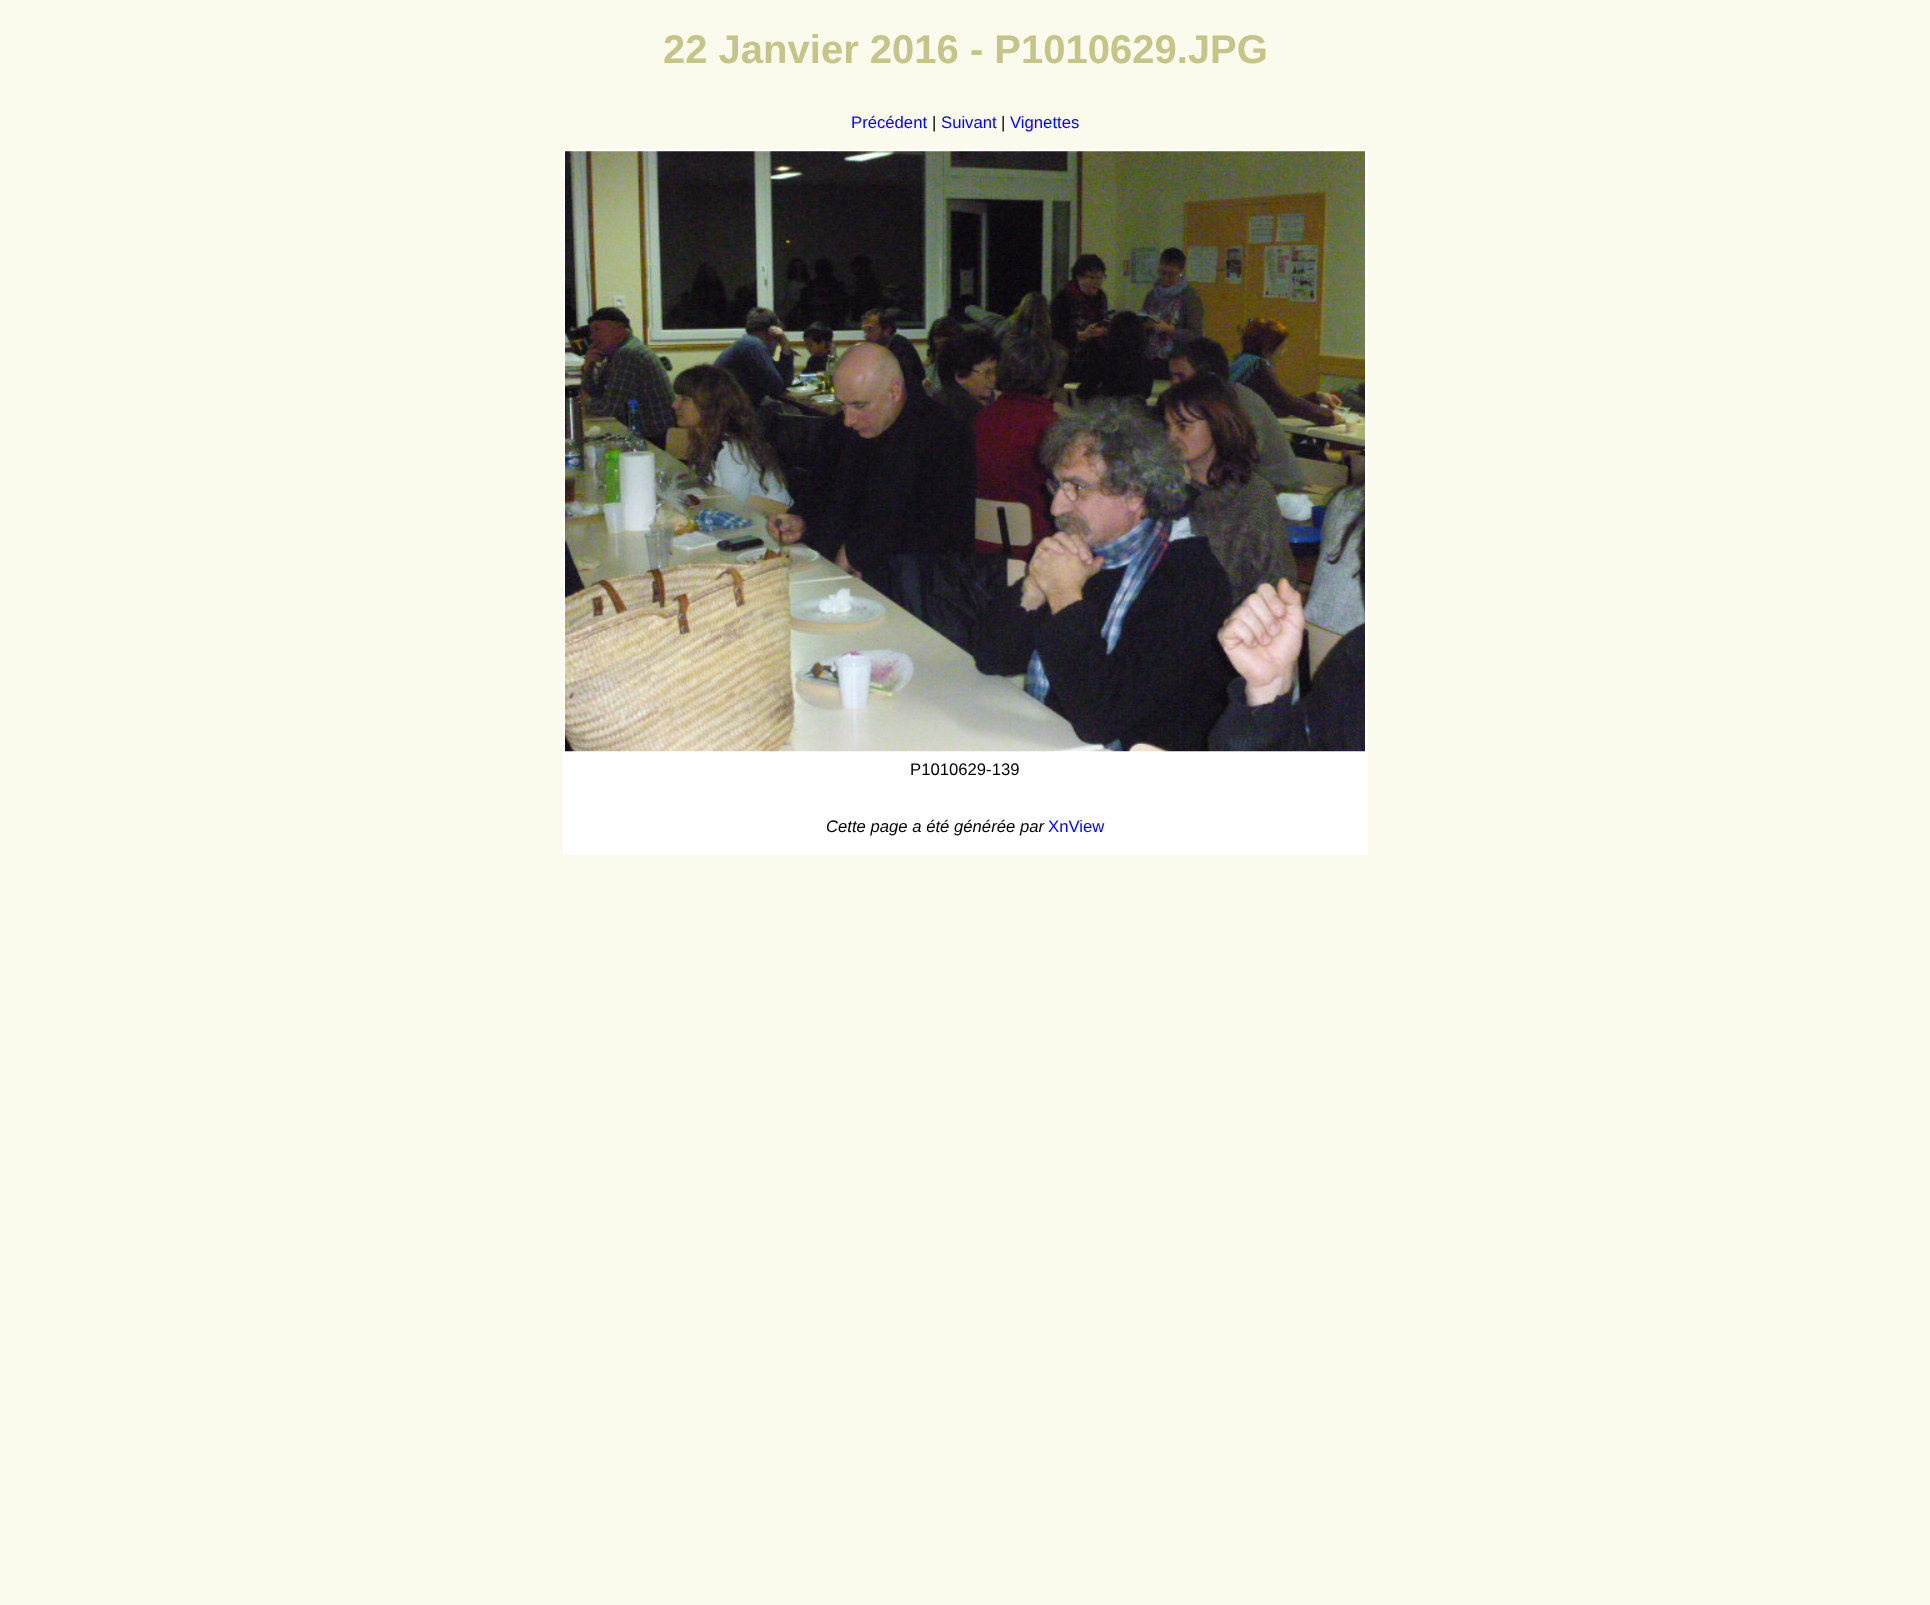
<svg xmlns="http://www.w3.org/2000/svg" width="1930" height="1605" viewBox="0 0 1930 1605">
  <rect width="100%" height="100%" fill="#fafaed"/>
  <path d="M563 149h805v706H563z" fill="#fff"/>
  <image x="565" y="151" width="800" height="601" href="img/1.png"/>
  <text x="663" y="63" font-family="Liberation Sans" font-size="40" font-weight="bold" fill="#c5c589">22 Janvier 2016 - P1010629.JPG</text>
  <text x="851" y="128" font-family="Liberation Sans" font-size="16.7" fill="#00f">Précédent</text>
  <text x="932" y="128" font-family="Liberation Sans" font-size="16.7" fill="#000">|</text>
  <text x="941" y="128" font-family="Liberation Sans" font-size="16.7" fill="#00f">Suivant</text>
  <text x="1001" y="128" font-family="Liberation Sans" font-size="16.7" fill="#000">|</text>
  <text x="1010" y="128" font-family="Liberation Sans" font-size="16.7" fill="#00f">Vignettes</text>
  <text x="910" y="775" font-family="Liberation Sans" font-size="16.7" fill="#000">P1010629-139</text>
  <text x="826" y="832" font-family="Liberation Sans" font-size="16.7" font-style="italic" fill="#000">Cette page a été générée par</text>
  <text x="1048" y="832" font-family="Liberation Sans" font-size="16.7" fill="#00f">XnView</text>
</svg>
